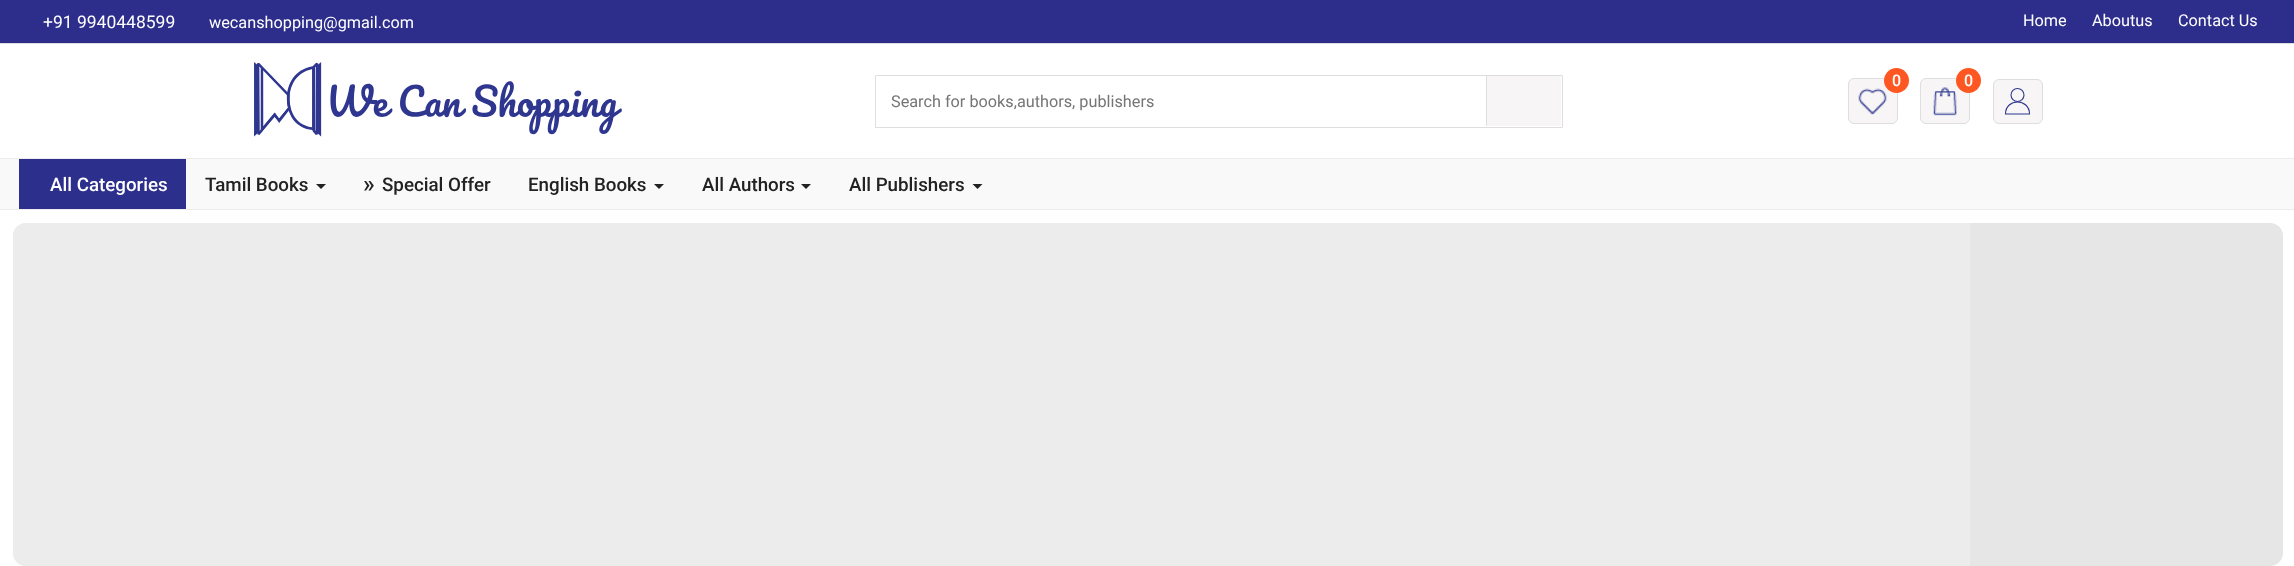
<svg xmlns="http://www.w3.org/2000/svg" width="2294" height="566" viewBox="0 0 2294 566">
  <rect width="100%" height="100%" fill="#fff"/>
  <path d="M0 0h2294v43H0z" fill="#2d2e8b"/>
  <path d="M0 43h2294v1H0z" fill="#ddd"/>
  <image x="254" y="62" width="368" height="75" href="img/1.png"/>
  <rect x="1848.5" y="78.5" width="49" height="45" rx="5.5" fill="#f7f5f5" stroke="#dedede"/>
  <image x="1858" y="88" width="29" height="27" href="img/2.png"/>
  <circle cx="1896.5" cy="80.5" r="12.5" fill="#ff5722"/>
  <rect x="1920.5" y="78.5" width="49" height="45" rx="5.5" fill="#f7f5f5" stroke="#dedede"/>
  <image x="1933" y="87" width="24" height="29" href="img/3.png"/>
  <circle cx="1968.5" cy="80.5" r="12.5" fill="#ff5722"/>
  <rect x="1993.5" y="79.5" width="49" height="44" rx="5.5" fill="#f7f5f5" stroke="#dedede"/>
  <circle cx="2017.5" cy="95" r="6.5" fill="none" stroke="#2c378d" stroke-width="1.1"/>
  <path d="M2005.5 114C2005.5 98 2029.5 98 2029.5 114Z" fill="none" stroke="#2c378d" stroke-width="1.1" stroke-linecap="round" stroke-linejoin="round"/>
  <path d="M875.5 75.5h687v52H875.5z" fill="none" stroke="#dedede"/>
  <path d="M1487 76h74v50H1487z" fill="#f7f5f5"/>
  <path d="M1486 76h1v50H1486z" fill="#dedede"/>
  <path d="M0 159h2294v50H0z" fill="#f9f9f9"/>
  <path d="M0 158h2294v1H0z" fill="#efecec"/>
  <path d="M0 209h2294v1H0z" fill="#efecec"/>
  <path d="M19 159h167v50H19z" fill="#2d2f8c"/>
  <path d="M316 184H326L321 189Z" fill="#222"/>
  <path d="M654 184H664L659 189Z" fill="#222"/>
  <path d="M801 184H811L806 189Z" fill="#222"/>
  <path d="M972.5 184H982.5L977.5 189Z" fill="#222"/>
  <rect x="13" y="223" width="2270" height="343" rx="13" fill="#e6e6e6"/>
  <path d="M26 223H1970V566H26C19 566 13 560 13 553V236C13 229 19 223 26 223Z" fill="#f1f1f187"/>
  <text x="43" y="28" font-family="Roboto" font-size="17.5" fill="#fff">+91 9940448599</text>
  <g font-family="Roboto" font-size="16.25" fill="#fff">
    <text x="209" y="28">wecanshopping@gmail.com</text>
    <text x="2023" y="26">Home</text>
    <text x="2092" y="26">Aboutus</text>
    <text x="2178" y="26">Contact Us</text>
  </g>
  <g font-family="Roboto" font-size="16" font-weight="500" fill="#fff">
    <text x="1892" y="86">0</text>
    <text x="1964" y="86">0</text>
  </g>
  <text x="891" y="107" font-family="Roboto" font-size="16.25" fill="#757575">Search for books,authors, publishers</text>
  <text x="50" y="191" font-family="Roboto" font-size="18.75" font-weight="500" fill="#fff">All Categories</text>
  <text x="205" y="191" font-family="Roboto" font-size="18.75" font-weight="500" fill="#222">Tamil Books</text>
  <text x="363" y="192" font-family="Roboto" font-size="24" font-weight="500" letter-spacing="1" fill="#222">»</text>
  <g font-family="Roboto" font-size="18.75" font-weight="500" fill="#222">
    <text x="382" y="191">Special Offer</text>
    <text x="528" y="191">English Books</text>
    <text x="702" y="191">All Authors</text>
    <text x="849" y="191">All Publishers</text>
  </g>
</svg>
